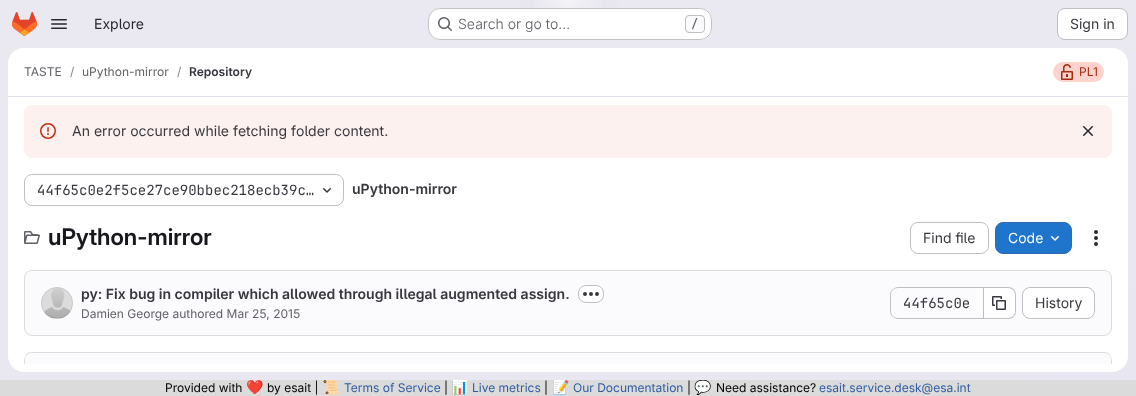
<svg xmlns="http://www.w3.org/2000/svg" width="1136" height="396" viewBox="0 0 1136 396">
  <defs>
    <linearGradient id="g1" gradientUnits="userSpaceOnUse" x1="619" y1="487" x2="517" y2="-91"><stop offset="0" stop-color="#e8e6f0"/><stop offset="0.7" stop-color="#eae9f2"/></linearGradient>
    <radialGradient id="g2" gradientUnits="userSpaceOnUse" cx="0" cy="0" r="1" gradientTransform="matrix(568 0 0 396 568 0)"><stop offset="0" stop-color="#e4e2ed"/><stop offset="0.12" stop-color="#e4e2ed" stop-opacity="0"/></radialGradient>
    <radialGradient id="g3" gradientUnits="userSpaceOnUse" cx="0" cy="0" r="1" gradientTransform="matrix(568 0 0 396 568 0)"><stop offset="0" stop-color="#e4e2ec"/><stop offset="0.09" stop-color="#e4e2ec" stop-opacity="0"/></radialGradient>
    <radialGradient id="g4" gradientUnits="userSpaceOnUse" cx="568" cy="0" r="692"><stop offset="0" stop-color="#fff" stop-opacity="0.6"/><stop offset="0.06" stop-color="#fff" stop-opacity="0"/></radialGradient>
    <clipPath id="clip1"><path d="M8 97h1120v267H8z"/></clipPath>
    <clipPath id="clip2"><path d="M165 380h806v16H165z"/></clipPath>
  </defs>
  <rect width="100%" height="100%" fill="#fff"/>
  <path d="M0 0h1136v380H0z" fill="url(#g1)"/>
  <path d="M519 0h98v34H519z" fill="url(#g2)"/>
  <path d="M544 3h43v5H544z" fill="url(#g3)"/>
  <path d="M533 0h70v34H533z" fill="url(#g4)"/>
  <image x="12" y="12" width="25" height="24" href="img/1.png"/>
  <image x="51" y="19" width="16" height="10" href="img/2.png"/>
  <rect x="428" y="8" width="284" height="32" rx="12" fill="#fff"/>
  <rect x="428.5" y="8.5" width="283" height="31" rx="11.5" fill="none" stroke="#0505063d"/>
  <image x="438" y="17" width="14" height="14" href="img/3.png"/>
  <rect x="685.5" y="15.5" width="19" height="17" rx="3.5" fill="#fbfafd" stroke="#bfbfc3"/>
  <rect x="1057.5" y="8.5" width="70" height="31" rx="7.5" fill="#fff" stroke="#bfbfc3"/>
  <rect x="8" y="48" width="1120" height="324" rx="16" fill="#fff"/>
  <path d="M24 48H1112C1121 48 1128 55 1128 64V97H8V64C8 55 15 48 24 48Z" fill="#fff"/>
  <path d="M8 96h1120v1H8z" fill="#e1dfec"/>
  <rect x="1053" y="62" width="51" height="20" rx="10" fill="#fdd4cd"/>
  <image x="1061" y="64" width="12" height="16" href="img/4.png"/>
  <rect x="24" y="105" width="1088" height="53" rx="8" fill="#fcf1ef"/>
  <image x="40" y="123" width="16" height="16" href="img/5.png"/>
  <image x="1083" y="126" width="10" height="10" href="img/6.png"/>
  <rect x="24.5" y="174.5" width="319" height="31" rx="7.5" fill="none" stroke="#bfbfc3"/>
  <image x="323" y="188" width="8" height="5" href="img/7.png"/>
  <image x="24" y="231" width="16" height="13" href="img/8.png"/>
  <rect x="910.5" y="222.5" width="78" height="31" rx="7.5" fill="none" stroke="#bfbfc3"/>
  <rect x="995.5" y="222.5" width="76" height="31" rx="7.5" fill="#1f75cb" stroke="#2f68b4"/>
  <image x="1051" y="236" width="8" height="5" href="img/9.png"/>
  <image x="1094" y="230" width="4" height="16" href="img/10.png"/>
  <rect x="24.5" y="270.5" width="1087" height="65" rx="7.5" fill="#fbfafd" stroke="#dcdcde"/>
  <image x="41" y="287" width="32" height="32" href="img/11.png"/>
  <circle cx="57" cy="303" r="15.5" fill="none" stroke="#05050614"/>
  <rect x="578.5" y="285.5" width="25" height="17" rx="7.5" fill="#fff" stroke="#bfbfc3"/>
  <image x="583" y="292" width="16" height="4" href="img/12.png"/>
  <path d="M898 287H983V319H898C894 319 890 315 890 311V295C890 291 894 287 898 287ZM898 288H983V318H898C894 318 891 315 891 311V295C891 291 894 288 898 288Z" fill="#bfbfc3" fill-rule="evenodd"/>
  <path d="M984 288H1008C1012 288 1015 291 1015 295V311C1015 315 1012 318 1008 318H984Z" fill="#fff"/>
  <path d="M984 287H1008C1012.5 287 1016 290.5 1016 295V311C1016 315.5 1012.5 319 1008 319H984ZM984 288H1008C1012 288 1015 291 1015 295V311C1015 315 1012 318 1008 318H984Z" fill="#bfbfc3" fill-rule="evenodd"/>
  <path d="M983 287h1v32H983z" fill="#bfbfc3"/>
  <image x="992" y="296" width="14" height="14" href="img/13.png"/>
  <rect x="1022.5" y="287.5" width="72" height="31" rx="7.5" fill="#fff" stroke="#bfbfc3"/>
  <g clip-path="url(#clip1)">
    <path d="M32 352C22 352 24 365 24 372H25C25 366 23 355 31 353H1104C1113 353 1111 366 1111 372H1112C1112 365 1114 352 1104 352Z" fill="#dcdcde"/>
  </g>
  <path d="M32 353H387V364H25V360C25 356 28 353 32 353Z" fill="#fbfafd"/>
  <path d="M387 353h362v11H387z" fill="#fbfafd"/>
  <path d="M749 353H1104C1108 353 1111 356 1111 360V364H749Z" fill="#fbfafd"/>
  <path d="M0 380h1136v16H0z" fill="#dbdbdb"/>
  <text x="94" y="29" font-family="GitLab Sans" font-size="14" fill="#28272d">Explore</text>
  <text x="458" y="29" font-family="GitLab Sans" font-size="14" font-weight="300" fill="#626168">Search or go to…</text>
  <text x="691" y="28" font-family="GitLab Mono" font-size="12" font-weight="500" fill="#626168">/</text>
  <text x="1070" y="29" font-family="GitLab Sans" font-size="14" fill="#3a383f">Sign in</text>
  <text x="24" y="76" font-family="GitLab Sans" font-size="12" fill="#626168">TASTE</text>
  <text x="70" y="76" font-family="GitLab Sans" font-size="12" fill="#89888d">/</text>
  <text x="82" y="76" font-family="GitLab Sans" font-size="12" fill="#626168">uPython-mirror</text>
  <text x="177" y="76" font-family="GitLab Sans" font-size="12" fill="#89888d">/</text>
  <text x="189" y="76" font-family="'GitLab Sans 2'" font-size="12" font-weight="600" fill="#3a383f">Repository</text>
  <text x="1079" y="76" font-family="GitLab Sans" font-size="12" fill="#a32c12">PL1</text>
  <text x="72" y="136" font-family="GitLab Sans" font-size="14" fill="#3a383f">An error occurred while fetching folder content.</text>
  <text x="37" y="195" font-family="GitLab Mono" font-size="14" fill="#3a383f">44f65c0e2f5ce27ce90bbec218ecb39c…</text>
  <text x="352" y="194" font-family="'GitLab Sans 2'" font-size="14" font-weight="600" fill="#3a383f">uPython-mirror</text>
  <text x="48" y="245" font-family="GitLab Sans" font-size="23" font-weight="600" fill="#18171d">uPython-mirror</text>
  <text x="923" y="243" font-family="GitLab Sans" font-size="14" fill="#3a383f">Find file</text>
  <text x="1008" y="243" font-family="GitLab Sans" font-size="14" fill="#fff">Code</text>
  <text x="81" y="299" font-family="'GitLab Sans 2'" font-size="14" font-weight="600" fill="#3a383f">py: Fix bug in compiler which allowed through illegal augmented assign.</text>
  <text x="81" y="318" font-family="GitLab Sans" font-size="12" fill="#626168">Damien George authored Mar 25, 2015</text>
  <text x="903" y="308" font-family="GitLab Mono" font-size="14" fill="#3a383f">44f65c0e</text>
  <text x="1035" y="308" font-family="GitLab Sans" font-size="14" fill="#3a383f">History</text>
  <text x="165" y="392" font-family="GitLab Sans" font-size="12" fill="#000">Provided with</text>
  <g clip-path="url(#clip2)">
    <text x="246" y="392" font-family="Noto Color Emoji" font-size="14" fill="#000">❤️</text>
  </g>
  <text x="267" y="392" font-family="GitLab Sans" font-size="12" fill="#000">by esait |</text>
  <g clip-path="url(#clip2)">
    <text x="322" y="392" font-family="Noto Color Emoji" font-size="14" fill="#000">📜</text>
  </g>
  <text x="344" y="392" font-family="GitLab Sans" font-size="12" fill="#2f5ca0">Terms of Service</text>
  <text x="444" y="392" font-family="GitLab Sans" font-size="12" fill="#000">|</text>
  <g clip-path="url(#clip2)">
    <text x="451" y="392" font-family="Noto Color Emoji" font-size="14" fill="#000">📊</text>
  </g>
  <text x="472" y="392" font-family="GitLab Sans" font-size="12" fill="#2f5ca0">Live metrics</text>
  <text x="544" y="392" font-family="GitLab Sans" font-size="12" fill="#000">|</text>
  <g clip-path="url(#clip2)">
    <text x="552" y="392" font-family="Noto Color Emoji" font-size="14" fill="#000">📝</text>
  </g>
  <text x="573" y="392" font-family="GitLab Sans" font-size="12" fill="#2f5ca0">Our Documentation</text>
  <text x="687" y="392" font-family="GitLab Sans" font-size="12" fill="#000">|</text>
  <g clip-path="url(#clip2)">
    <text x="694" y="392" font-family="Noto Color Emoji" font-size="14" fill="#000">💬</text>
  </g>
  <text x="716" y="392" font-family="GitLab Sans" font-size="12" fill="#000">Need assistance?</text>
  <text x="819" y="392" font-family="GitLab Sans" font-size="12" fill="#2f5ca0">esait.service.desk@esa.int</text>
</svg>
